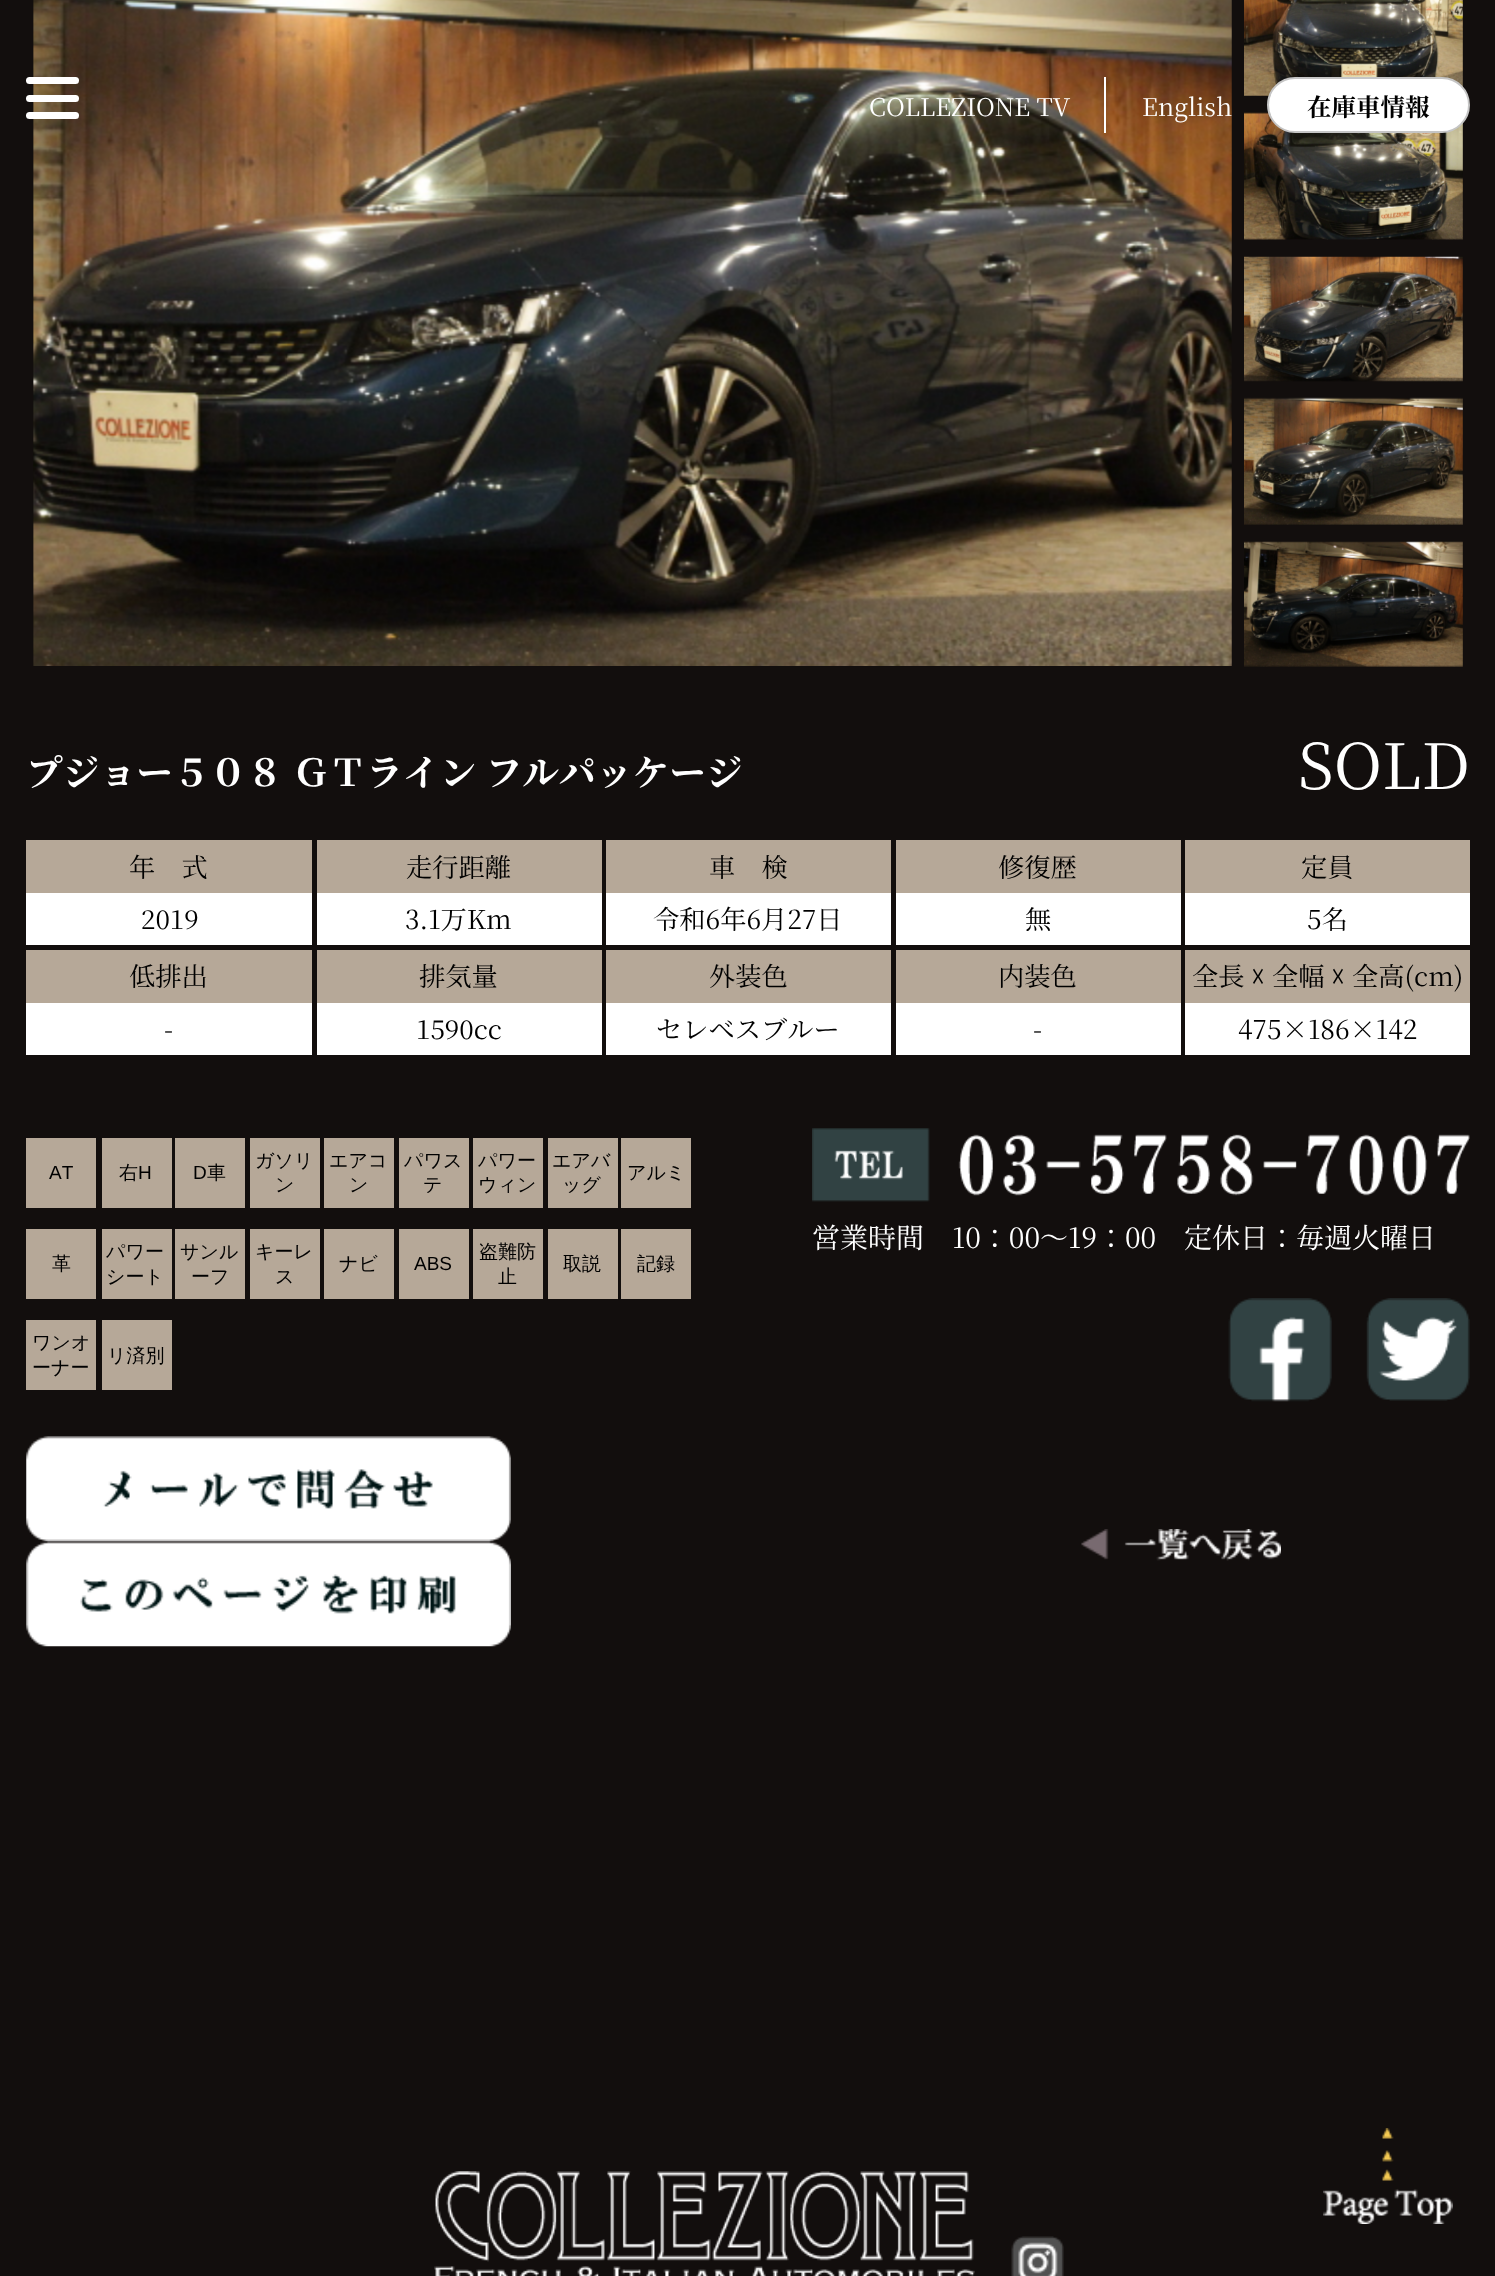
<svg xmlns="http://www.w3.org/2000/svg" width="1495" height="2276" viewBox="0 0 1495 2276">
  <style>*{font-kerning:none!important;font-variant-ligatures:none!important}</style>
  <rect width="100%" height="100%" fill="#120e0d"/>
  <image x="33" y="0" width="1199" height="666" href="img/1.png"/>
  <rect x="26" y="77" width="53" height="7" rx="3.5" fill="#fff"/>
  <rect x="26" y="95" width="53" height="7" rx="3.5" fill="#fff"/>
  <rect x="26" y="112" width="53" height="7" rx="3.5" fill="#fff"/>
  <path d="M1104 77h2v56H1104z" fill="#fff"/>
  <image x="1244" y="0" width="219" height="96" href="img/2.png"/>
  <image x="1244" y="112" width="219" height="128" href="img/3.png"/>
  <rect x="1268" y="78" width="201" height="54" rx="27" fill="#fff" stroke="#c5c5c5" stroke-width="2"/>
  <image x="1244" y="256" width="219" height="126" href="img/4.png"/>
  <image x="1244" y="397" width="219" height="128" href="img/5.png"/>
  <image x="1244" y="541" width="219" height="126" href="img/6.png"/>
  <path d="M26 840h286v53H26z" fill="#b6a898"/>
  <path d="M26 893h286v52H26z" fill="#fff"/>
  <path d="M317 840h285v53H317z" fill="#b6a898"/>
  <path d="M317 893h285v52H317z" fill="#fff"/>
  <path d="M606 840h285v53H606z" fill="#b6a898"/>
  <path d="M606 893h285v52H606z" fill="#fff"/>
  <path d="M896 840h285v53H896z" fill="#b6a898"/>
  <path d="M896 893h285v52H896z" fill="#fff"/>
  <path d="M1185 840h285v53H1185z" fill="#b6a898"/>
  <path d="M1185 893h285v52H1185z" fill="#fff"/>
  <path d="M26 950h286v53H26z" fill="#b6a898"/>
  <path d="M26 1003h286v52H26z" fill="#fff"/>
  <path d="M317 950h285v53H317z" fill="#b6a898"/>
  <path d="M317 1003h285v52H317z" fill="#fff"/>
  <path d="M606 950h285v53H606z" fill="#b6a898"/>
  <path d="M606 1003h285v52H606z" fill="#fff"/>
  <path d="M896 950h285v53H896z" fill="#b6a898"/>
  <path d="M896 1003h285v52H896z" fill="#fff"/>
  <path d="M1185 950h285v53H1185z" fill="#b6a898"/>
  <path d="M1185 1003h285v52H1185z" fill="#fff"/>
  <path d="M26 1138h70v70H26z" fill="#b6a898"/>
  <path d="M102 1138h70v70H102z" fill="#b6a898"/>
  <path d="M175 1138h70v70H175z" fill="#b6a898"/>
  <path d="M250 1138h70v70H250z" fill="#b6a898"/>
  <path d="M324 1138h70v70H324z" fill="#b6a898"/>
  <path d="M399 1138h70v70H399z" fill="#b6a898"/>
  <path d="M473 1138h70v70H473z" fill="#b6a898"/>
  <path d="M548 1138h70v70H548z" fill="#b6a898"/>
  <path d="M621 1138h70v70H621z" fill="#b6a898"/>
  <path d="M26 1229h70v70H26z" fill="#b6a898"/>
  <path d="M102 1229h70v70H102z" fill="#b6a898"/>
  <path d="M175 1229h70v70H175z" fill="#b6a898"/>
  <path d="M250 1229h70v70H250z" fill="#b6a898"/>
  <path d="M324 1229h70v70H324z" fill="#b6a898"/>
  <path d="M399 1229h70v70H399z" fill="#b6a898"/>
  <path d="M473 1229h70v70H473z" fill="#b6a898"/>
  <path d="M548 1229h70v70H548z" fill="#b6a898"/>
  <path d="M621 1229h70v70H621z" fill="#b6a898"/>
  <path d="M26 1320h70v70H26z" fill="#b6a898"/>
  <path d="M102 1320h70v70H102z" fill="#b6a898"/>
  <image x="812" y="1128" width="658" height="74" href="img/7.png"/>
  <image x="1228" y="1298" width="104" height="104" href="img/8.png"/>
  <image x="1366" y="1298" width="104" height="103" href="img/9.png"/>
  <image x="26" y="1436" width="485" height="106" href="img/10.png"/>
  <image x="26" y="1541" width="485" height="106" href="img/11.png"/>
  <image x="1081" y="1529" width="200" height="32" href="img/12.png"/>
  <image x="1323" y="2128" width="130" height="96" href="img/13.png"/>
  <image x="434" y="2171" width="541" height="105" href="img/14.png"/>
  <image x="1011" y="2236" width="53" height="40" href="img/15.png"/>
  <g font-family="Noto Serif JP" font-size="24.5" fill="#fff">
    <text x="869" y="116">COLLEZIONE TV</text>
    <text x="1142" y="116">English</text>
  </g>
  <text x="1307" y="116" font-family="Noto Serif JP" font-size="24.5" font-weight="bold" fill="#000">在庫車情報</text>
  <text x="26" y="786" font-family="Noto Serif JP" font-size="36.75" font-weight="bold" fill="#fff">プジョー５０８ ＧＴライン フル</text>
  <text x="559" y="786" font-family="Noto Serif JP" font-size="36.75" font-weight="bold" fill="#fff">パッケージ</text>
  <text x="1298" y="789" font-family="Noto Serif JP" font-size="63" fill="#fff">SOLD</text>
  <g font-family="Noto Serif JP" font-size="26.25" fill="#000">
    <text x="129" y="877">年　式</text>
    <text x="141" y="929">2019</text>
    <text x="406" y="877">走行距離</text>
    <text x="405" y="929">3.1万Km</text>
    <text x="709" y="877">車　検</text>
    <text x="653" y="929">令和6年6月27日</text>
    <text x="998" y="877">修復歴</text>
    <text x="1025" y="929">無</text>
    <text x="1301" y="877">定員</text>
    <text x="1307" y="929">5名</text>
    <text x="129" y="986">低排出</text>
    <text x="164" y="1039">-</text>
    <text x="419" y="986">排気量</text>
    <text x="416" y="1039">1590cc</text>
    <text x="709" y="986">外装色</text>
    <text x="656" y="1039">セレベスブルー</text>
    <text x="998" y="986">内装色</text>
    <text x="1033" y="1039">-</text>
    <text x="1192" y="986">全長</text>
  </g>
  <text x="1251" y="986" font-family="DejaVu Sans" font-size="26.25" fill="#000">☓</text>
  <text x="1272" y="986" font-family="Noto Serif JP" font-size="26.25" fill="#000">全幅</text>
  <text x="1331" y="986" font-family="DejaVu Sans" font-size="26.25" fill="#000">☓</text>
  <g font-family="Noto Serif JP" font-size="26.25" fill="#000">
    <text x="1352" y="986">全高(cm)</text>
    <text x="1238" y="1039">475×186×142</text>
  </g>
  <text x="49" y="1179" font-family="Liberation Sans" font-size="19" fill="#000">AT</text>
  <text x="119" y="1179" font-family="WenQuanYi Zen Hei" font-size="19" font-weight="500" fill="#000">右</text>
  <g font-family="Liberation Sans" font-size="19" fill="#000">
    <text x="138" y="1179">H</text>
    <text x="193" y="1179">D</text>
  </g>
  <g font-family="WenQuanYi Zen Hei" font-size="19" font-weight="500" fill="#000">
    <text x="207" y="1179">車</text>
    <text x="255" y="1167">ガソリ</text>
    <text x="275" y="1191">ン</text>
    <text x="329" y="1167">エアコ</text>
    <text x="349" y="1191">ン</text>
    <text x="404" y="1167">パワス</text>
    <text x="423" y="1191">テ</text>
    <text x="478" y="1167">パワー</text>
    <text x="478" y="1191">ウィン</text>
    <text x="552" y="1167">エアバ</text>
    <text x="562" y="1191">ッグ</text>
    <text x="627" y="1179">アルミ</text>
    <text x="52" y="1270">革</text>
    <text x="106" y="1258">パワー</text>
    <text x="106" y="1283">シート</text>
    <text x="180" y="1258">サンル</text>
    <text x="191" y="1283">ーフ</text>
    <text x="255" y="1258">キーレ</text>
    <text x="275" y="1283">ス</text>
    <text x="339" y="1270">ナビ</text>
  </g>
  <text x="414" y="1270" font-family="Liberation Sans" font-size="19" fill="#000">ABS</text>
  <g font-family="WenQuanYi Zen Hei" font-size="19" font-weight="500" fill="#000">
    <text x="479" y="1258">盗難防</text>
    <text x="498" y="1283">止</text>
    <text x="563" y="1270">取説</text>
    <text x="637" y="1270">記録</text>
    <text x="32" y="1349">ワンオ</text>
    <text x="32" y="1374">ーナー</text>
    <text x="107" y="1362">リ済別</text>
  </g>
  <text x="812" y="1248" font-family="Noto Serif JP" font-size="28" fill="#fff">営業時間　10：00～19：00　定休日：毎週火曜日</text>
</svg>
